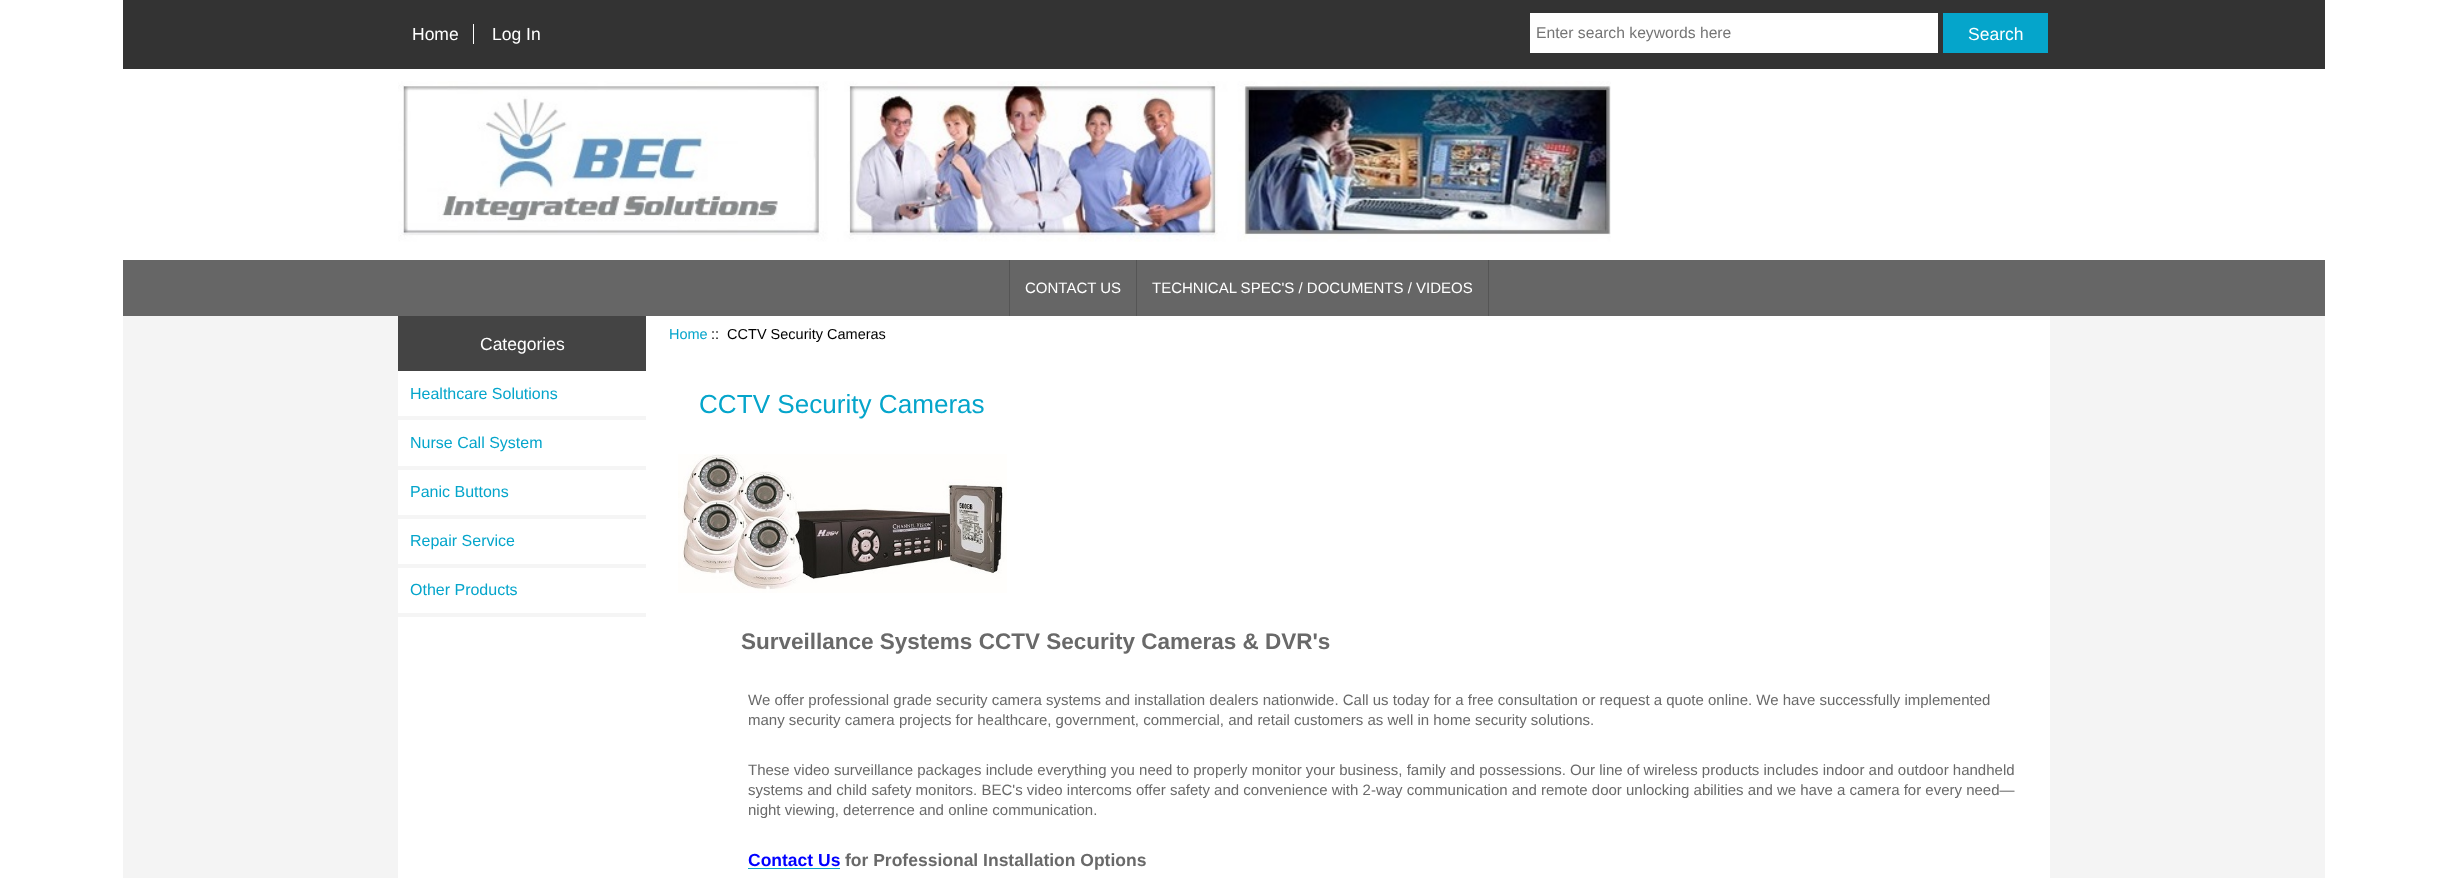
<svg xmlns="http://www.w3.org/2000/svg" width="2447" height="878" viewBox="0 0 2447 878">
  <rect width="100%" height="100%" fill="#fff"/>
  <path d="M123 316h2202v562H123z" fill="#f4f4f4"/>
  <path d="M123 0h2202v69H123z" fill="#333"/>
  <path d="M473 24h1v20H473z" fill="#fff"/>
  <path d="M1530 13h408v40H1530z" fill="#fff"/>
  <path d="M1943 13h105v40H1943z" fill="#05a5cb"/>
  <image x="398" y="81" width="1213" height="161" href="img/1.png"/>
  <path d="M123 260h2202v56H123z" fill="#666"/>
  <path d="M1009 260h1v56H1009z" fill="#555"/>
  <path d="M1488 260h1v56H1488z" fill="#555"/>
  <path d="M1136 260h1v56H1136z" fill="#555"/>
  <path d="M398 316h1652v562H398z" fill="#fff"/>
  <path d="M398 316h248v55H398z" fill="#444"/>
  <path d="M398 416h248v4H398z" fill="#f5f5f5"/>
  <path d="M398 466h248v4H398z" fill="#f5f5f5"/>
  <path d="M398 515h248v4H398z" fill="#f5f5f5"/>
  <path d="M398 564h248v4H398z" fill="#f5f5f5"/>
  <path d="M398 613h248v4H398z" fill="#f5f5f5"/>
  <image x="678" y="454" width="329" height="139" href="img/2.png"/>
  <path d="M748 868h92v1H748z" fill="#05a5cb"/>
  <g font-family="Liberation Sans" font-size="17.5" fill="#fff">
    <text x="412" y="40">Home</text>
    <text x="492" y="40">Log In</text>
  </g>
  <text x="1536" y="38" font-family="Liberation Sans" font-size="15.7" fill="#757575">Enter search keywords here</text>
  <text x="1968" y="40" font-family="Liberation Sans" font-size="17.5" fill="#fff">Search</text>
  <g font-family="Liberation Sans" font-size="15" fill="#fff">
    <text x="1025" y="293">CONTACT US</text>
    <text x="1152" y="293">TECHNICAL SPEC'S / DOCUMENTS / VIDEOS</text>
  </g>
  <text x="480" y="350" font-family="Liberation Sans" font-size="17.5" fill="#fff">Categories</text>
  <g font-family="Liberation Sans" font-size="16" fill="#05a5cb">
    <text x="410" y="399">Healthcare Solutions</text>
    <text x="410" y="448">Nurse Call System</text>
    <text x="410" y="497">Panic Buttons</text>
    <text x="410" y="546">Repair Service</text>
    <text x="410" y="595">Other Products</text>
  </g>
  <text x="669" y="339" font-family="Liberation Sans" font-size="14.5" fill="#05a5cb">Home</text>
  <text x="711" y="339" font-family="Liberation Sans" font-size="14.5" fill="#000" xml:space="preserve">::  CCTV Security Cameras</text>
  <text x="699" y="413" font-family="Liberation Sans" font-size="26.1" fill="#05a5cb">CCTV Security Cameras</text>
  <text x="741" y="649" font-family="Liberation Sans" font-size="22.5" font-weight="bold" fill="#696969">Surveillance Systems CCTV Security Cameras &amp; DVR's</text>
  <g font-family="Liberation Sans" font-size="15" fill="#696969">
    <text x="748" y="705">We offer professional grade security camera systems and installation dealers nationwide. Call us today for a free consultation or request a quote online. We have successfully implemented</text>
    <text x="748" y="725">many security camera projects for healthcare, government, commercial, and retail customers as well in home security solutions.</text>
    <text x="748" y="775">These video surveillance packages include everything you need to properly monitor your business, family and possessions. Our line of wireless products includes indoor and outdoor handheld</text>
    <text x="748" y="795">systems and child safety monitors. BEC's video intercoms offer safety and convenience with 2-way communication and remote door unlocking abilities and we have a camera for every need—</text>
    <text x="748" y="815">night viewing, deterrence and online communication.</text>
  </g>
  <text x="748" y="866" font-family="Liberation Sans" font-size="17.5" font-weight="bold" fill="#00f">Contact Us</text>
  <text x="845" y="866" font-family="Liberation Sans" font-size="17.5" font-weight="bold" fill="#696969">for Professional Installation Options</text>
</svg>
